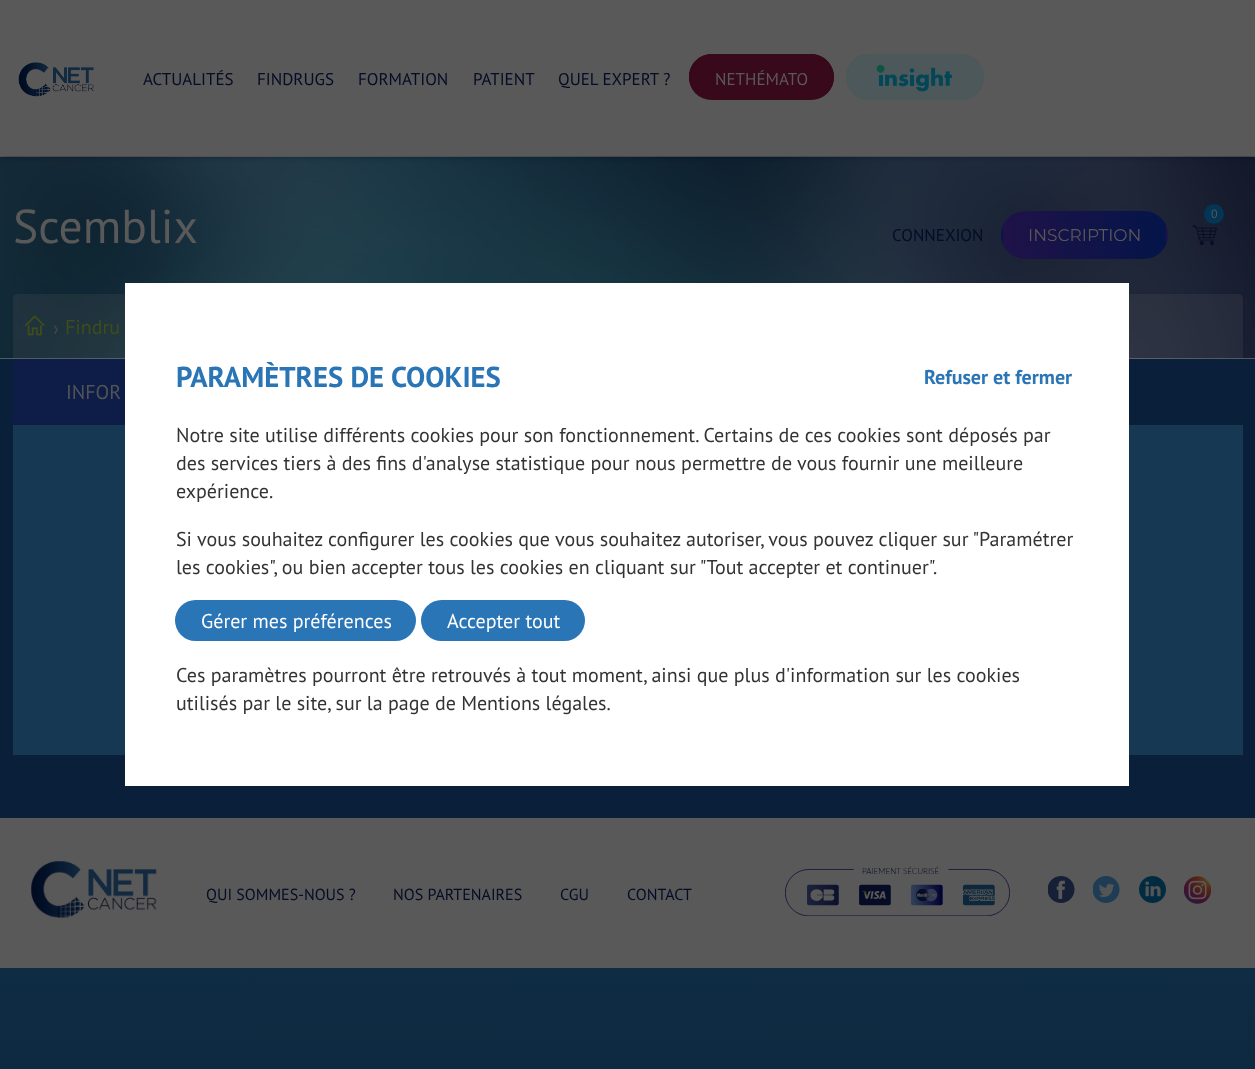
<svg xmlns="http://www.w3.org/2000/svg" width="1255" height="1069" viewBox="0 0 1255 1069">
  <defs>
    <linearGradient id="g1" gradientUnits="userSpaceOnUse" x1="627" y1="968" x2="628" y2="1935"><stop offset="0" stop-color="#0e2c43"/><stop offset="1" stop-color="#06132f"/></linearGradient>
    <clipPath id="clip1"><rect x="1001" y="211" width="167" height="48" rx="24"/></clipPath>
    <linearGradient id="g2" gradientUnits="userSpaceOnUse" x1="839" y1="235" x2="1003" y2="235"><stop offset="0" stop-color="#1f1248"/><stop offset="1" stop-color="#041549"/></linearGradient>
    <linearGradient id="g3" gradientUnits="userSpaceOnUse" x1="1003" y1="235" x2="1166" y2="235"><stop offset="0" stop-color="#1f1248"/><stop offset="1" stop-color="#041549"/></linearGradient>
    <linearGradient id="g4" gradientUnits="userSpaceOnUse" x1="1166" y1="235" x2="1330" y2="235"><stop offset="0" stop-color="#1f1248"/><stop offset="1" stop-color="#041549"/></linearGradient>
    <clipPath id="clip2"><path d="M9 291H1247V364H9ZM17 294H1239C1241 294 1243 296 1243 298V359H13V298C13 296 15 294 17 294Z" clip-rule="evenodd"/></clipPath>
  </defs>
  <rect width="100%" height="100%" fill="#fff"/>
  <path d="M0 968h1255v101H0z" fill="url(#g1)"/>
  <image x="0" y="156" width="1255" height="203" href="img/4.png"/>
  <path d="M0 0h1255v156H0z" fill="#00000066" filter="blur(3px)"/>
  <path d="M0 0h1255v156H0z" fill="#595959"/>
  <image x="18" y="62" width="76" height="35" href="img/1.png"/>
  <rect x="689" y="54" width="145" height="46" rx="23" fill="#38081b"/>
  <path d="M712 54H811C823 54 834 64 834 77C834 90 823 100 811 100H712C699 100 689 90 689 77C689 64 699 54 712 54ZM712 55H811C823 55 832 65 832 77C832 90 823 100 811 100H712C700 100 690 90 690 77C690 65 700 55 712 55Z" fill="#38081b" fill-rule="evenodd"/>
  <rect x="846" y="54" width="138" height="46" rx="23" fill="#4c5859"/>
  <image x="876" y="64" width="76" height="28" href="img/2.png"/>
  <path d="M869 54H961C973 54 984 64 984 77C984 90 973 100 961 100H869C857 100 846 90 846 77C846 64 857 54 869 54ZM869 55H961C973 55 982 65 982 77C982 90 973 100 961 100H869C857 100 848 90 848 77C848 65 857 55 869 55Z" fill="#4c5859" fill-rule="evenodd"/>
  <circle cx="1214" cy="214" r="10" fill="#033555"/>
  <image x="1192" y="225" width="25" height="20" href="img/3.png"/>
  <g clip-path="url(#clip1)">
    <path d="M1001 225h2v20H1001z" fill="url(#g2)"/>
    <path d="M1003 211h163v48H1003z" fill="url(#g3)"/>
    <path d="M1166 225h2v20H1166z" fill="url(#g4)"/>
  </g>
  <g clip-path="url(#clip2)">
    <rect x="13" y="295" width="1230" height="65" rx="4" fill="#0000001a" filter="blur(1px)"/>
  </g>
  <path d="M17 294H1239C1241 294 1243 296 1243 298V359H13V298C13 296 15 294 17 294Z" fill="#59595933"/>
  <image x="25" y="315" width="20" height="21" href="img/5.png"/>
  <path d="M0 359h1255v459H0z" fill="#0a1f39"/>
  <path d="M18 359H363V425H13V364C13 361 15 359 18 359Z" fill="#0e1d47"/>
  <path d="M13 425h1230v330H13z" fill="#173852"/>
  <path d="M125 283h1004v503H125z" fill="#fff"/>
  <rect x="175" y="600" width="241" height="41" rx="20.5" fill="#2a75b6"/>
  <rect x="421" y="600" width="164" height="41" rx="20.5" fill="#2a75b6"/>
  <path d="M0 818h1255v150H0z" fill="#595959"/>
  <image x="31" y="861" width="126" height="57" href="img/6.png"/>
  <image x="785" y="866" width="225" height="50" href="img/7.png"/>
  <image x="1048" y="876" width="27" height="27" href="img/8.png"/>
  <image x="1093" y="876" width="27" height="27" href="img/9.png"/>
  <image x="1139" y="876" width="27" height="27" href="img/10.png"/>
  <image x="1184" y="876" width="27" height="28" href="img/11.png"/>
  <g font-family="PT Sans" font-size="17" fill="#060b26">
    <text x="143" y="85">ACTUALITÉS</text>
    <text x="257" y="85">FINDRUGS</text>
    <text x="358" y="85">FORMATION</text>
    <text x="473" y="85">PATIENT</text>
    <text x="558" y="85">QUEL EXPERT ?</text>
  </g>
  <text x="715" y="85" font-family="PT Sans" font-size="17" fill="#595959">NETHÉMATO</text>
  <text x="1211" y="218" font-family="PT Sans" font-size="12" fill="#595959">0</text>
  <text x="892" y="241" font-family="PT Sans" font-size="17" fill="#060b26">CONNEXION</text>
  <text x="1028" y="241" font-family="Montserrat" font-size="17" fill="#595959">INSCRIPTION</text>
  <text x="13" y="243" font-family="PT Sans" font-size="47.5" fill="#595959">Scemblix</text>
  <text x="53" y="335" font-family="PT Sans" font-size="20" fill="#474747">›</text>
  <text x="65" y="334" font-family="PT Sans" font-size="20" fill="#3e4d19">Findru</text>
  <text x="66" y="399" font-family="PT Sans" font-size="20" fill="#525358">INFOR</text>
  <text x="176" y="387" font-family="PT Sans" font-size="28.75" font-weight="bold" fill="#2a75b6">PARAMÈTRES DE COOKIES</text>
  <text x="924" y="384" font-family="PT Sans" font-size="20" font-weight="bold" fill="#2a75b6">Refuser et fermer</text>
  <g font-family="PT Sans" font-size="20" fill="#333">
    <text x="176" y="442">Notre site utilise différents cookies pour son fonctionnement. Certains de ces cookies sont déposés par</text>
    <text x="176" y="470">des services tiers à des fins d'analyse statistique pour nous permettre de vous fournir une meilleure</text>
    <text x="176" y="498">expérience.</text>
    <text x="176" y="546">Si vous souhaitez configurer les cookies que vous souhaitez autoriser, vous pouvez cliquer sur "Paramétrer</text>
    <text x="176" y="574">les cookies", ou bien accepter tous les cookies en cliquant sur "Tout accepter et continuer".</text>
  </g>
  <g font-family="PT Sans" font-size="20" fill="#fff">
    <text x="201" y="628">Gérer mes préférences</text>
    <text x="447" y="628">Accepter tout</text>
  </g>
  <g font-family="PT Sans" font-size="20" fill="#333">
    <text x="176" y="682">Ces paramètres pourront être retrouvés à tout moment, ainsi que plus d'information sur les cookies</text>
    <text x="176" y="710">utilisés par le site, sur la page de Mentions légales.</text>
  </g>
  <g font-family="PT Sans" font-size="16" fill="#060b26">
    <text x="206" y="900">QUI SOMMES-NOUS ?</text>
    <text x="393" y="900">NOS PARTENAIRES</text>
    <text x="560" y="900">CGU</text>
    <text x="627" y="900">CONTACT</text>
  </g>
</svg>
